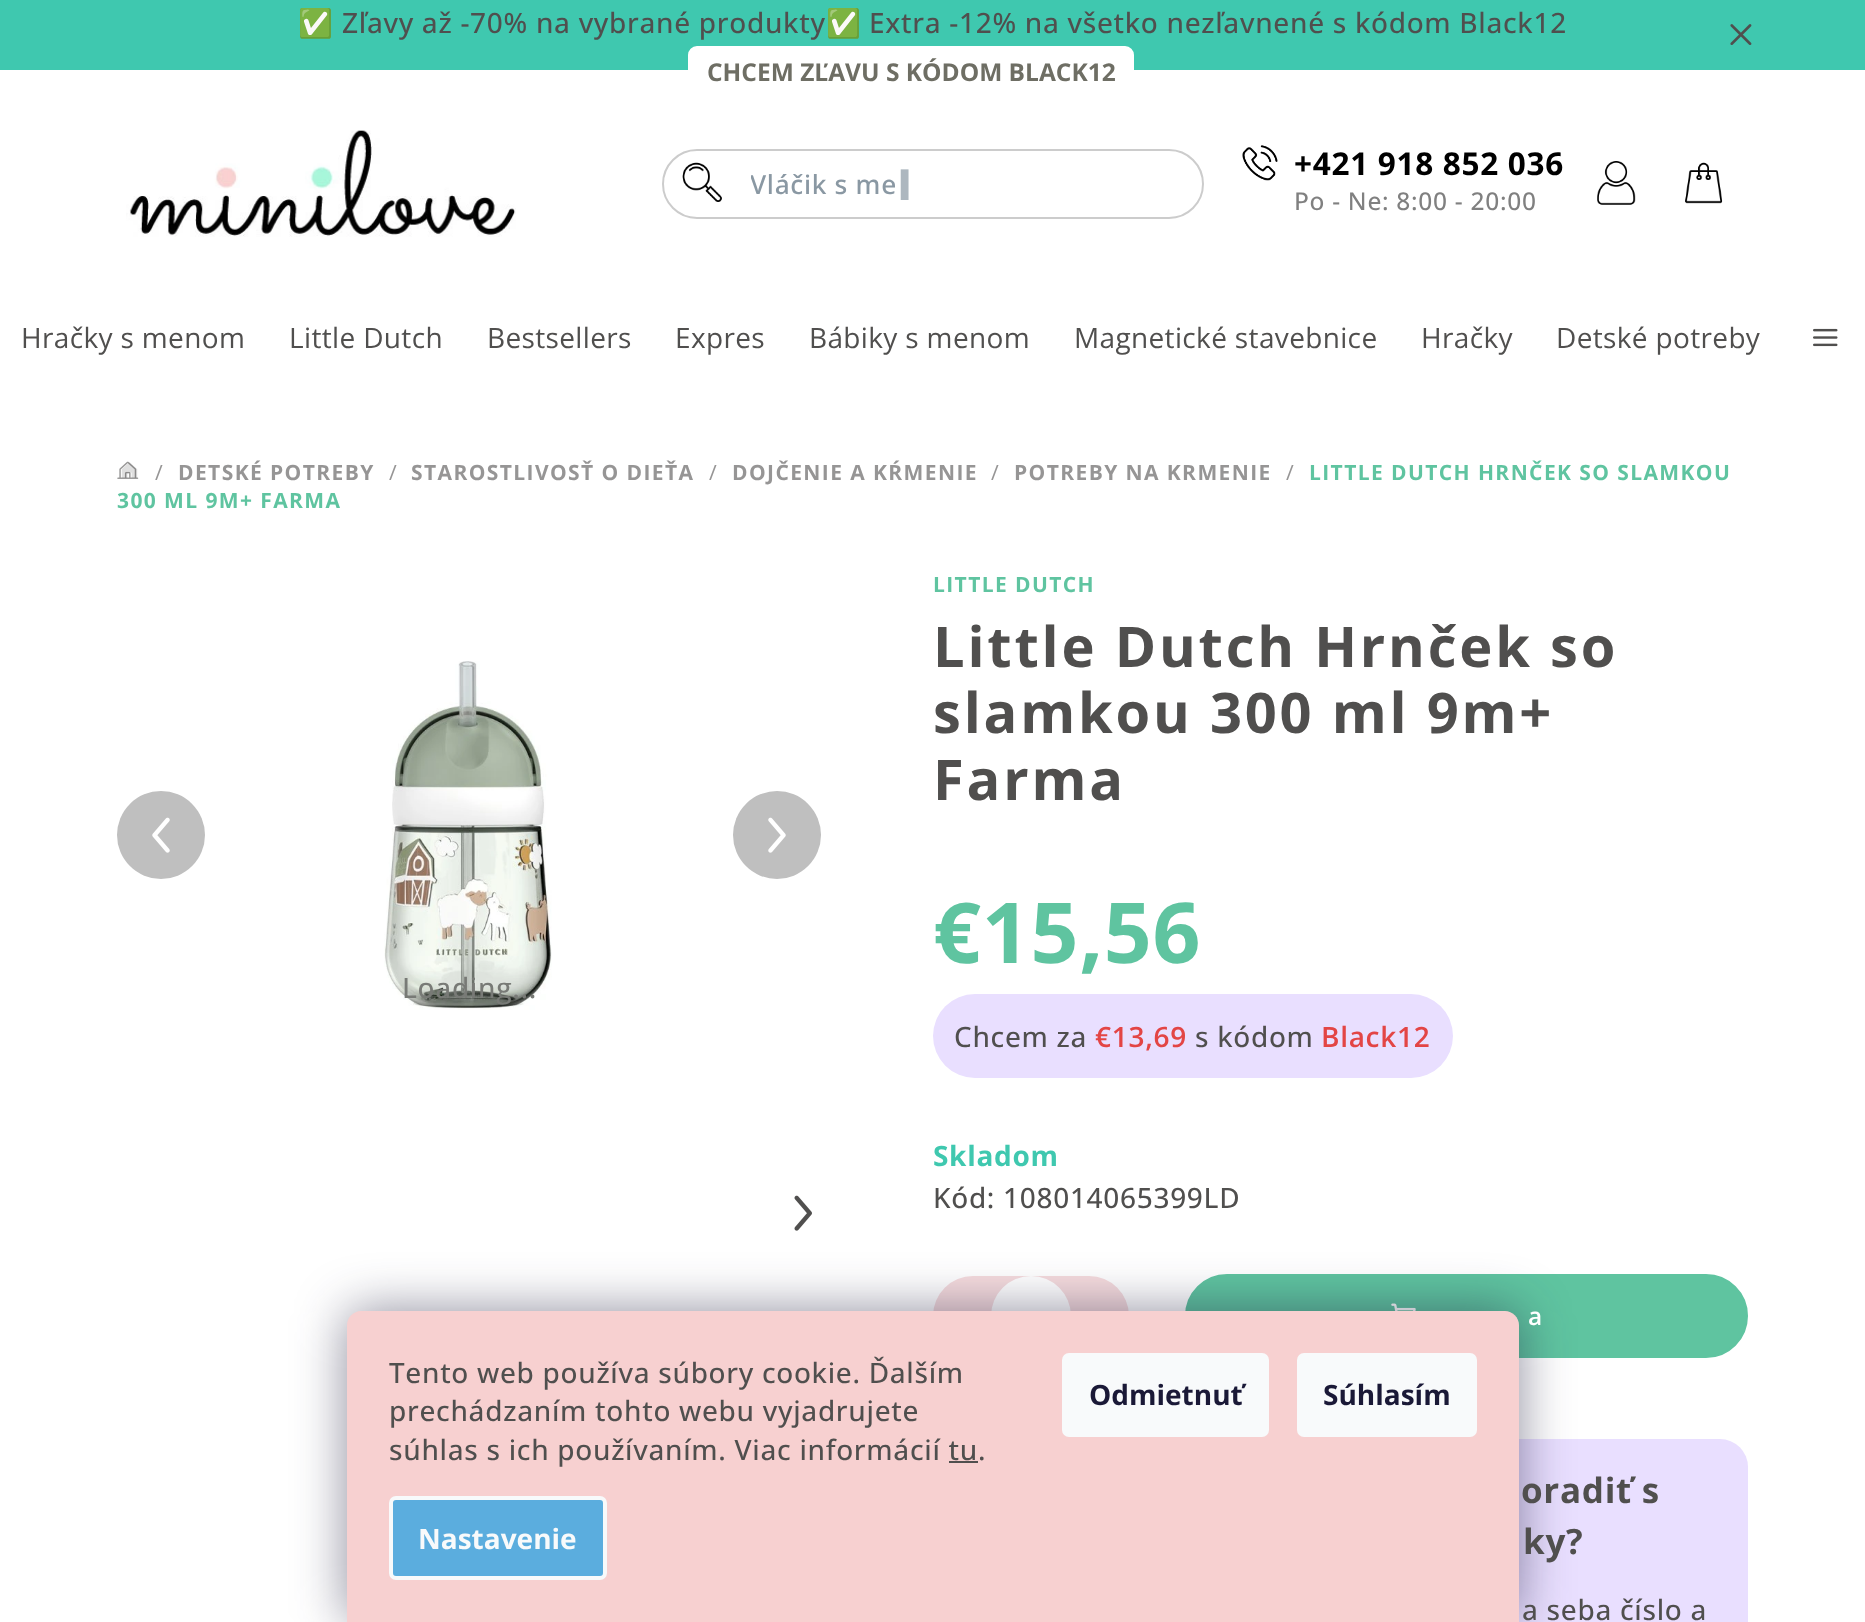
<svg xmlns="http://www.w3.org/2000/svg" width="1865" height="1622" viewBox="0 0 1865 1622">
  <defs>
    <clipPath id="clip1"><path d="M751 168h371v32H751z"/></clipPath>
  </defs>
  <rect width="100%" height="100%" fill="#fff"/>
  <path d="M0 0h1865v70H0z" fill="#3fc8af"/>
  <image x="1730" y="24" width="22" height="21" href="img/1.png"/>
  <rect x="689" y="47" width="444" height="48" rx="8" fill="#fff" stroke="#fff" stroke-width="2"/>
  <image x="126" y="130" width="390" height="107" href="img/2.png"/>
  <rect x="663" y="150" width="540" height="68" rx="34" fill="none" stroke="#ccc" stroke-width="2"/>
  <image x="682" y="162" width="40" height="40" href="img/3.png"/>
  <image x="1242" y="145" width="36" height="36" href="img/4.png"/>
  <image x="1597" y="161" width="39" height="44" href="img/5.png"/>
  <image x="1685" y="162" width="38" height="42" href="img/6.png"/>
  <image x="1813" y="328" width="25" height="19" href="img/7.png"/>
  <image x="117" y="461" width="22" height="18" href="img/8.png"/>
  <image x="121" y="462" width="17" height="16" href="img/9.png"/>
  <circle cx="161" cy="835" r="44" fill="#bfbfbf"/>
  <image x="152" y="817" width="18" height="36" href="img/10.png"/>
  <circle cx="777" cy="835" r="44" fill="#bfbfbf"/>
  <image x="768" y="817" width="18" height="36" href="img/11.png"/>
  <image x="384" y="661" width="168" height="349" href="img/12.png"/>
  <image x="794" y="1195" width="18" height="36" href="img/13.png"/>
  <rect x="933" y="994" width="520" height="84" rx="42" fill="#e9dfff"/>
  <rect x="933" y="1276" width="196" height="80" rx="40" fill="#f6dcde"/>
  <circle cx="1031" cy="1316" r="40" fill="#fff"/>
  <rect x="1186" y="1275" width="561" height="82" rx="41" fill="#5fc4a0" stroke="#5fc4a0" stroke-width="2"/>
  <image x="1391" y="1303" width="25" height="8" href="img/14.png"/>
  <rect x="933" y="1439" width="815" height="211" rx="28" fill="#e9dfff"/>
  <rect x="347" y="1311" width="1172" height="311" rx="14" fill="#1b193980" filter="blur(26px)"/>
  <path d="M361 1311H1505C1512.5 1311 1519 1317.5 1519 1325V1622H347V1325C347 1317.5 353.5 1311 361 1311Z" fill="#f7d0d0"/>
  <path d="M949 1461h29v2H949z" fill="#504f4e"/>
  <rect x="391" y="1498" width="214" height="80" rx="5" fill="#5badde" stroke="#f8fafb" stroke-width="4"/>
  <rect x="1062" y="1353" width="207" height="84" rx="7" fill="#f8fafb"/>
  <rect x="1297" y="1353" width="180" height="84" rx="7" fill="#f8fafb"/>
  <text x="298" y="33" font-family="Noto Color Emoji" font-size="28" letter-spacing="0.7" fill="#504f4e">✅</text>
  <text x="342" y="33" font-family="Open Sans" font-size="28" font-weight="500" letter-spacing="0.7" fill="#504f4e">Zľavy až -70% na vybrané produkty</text>
  <text x="826" y="33" font-family="Noto Color Emoji" font-size="28" letter-spacing="0.7" fill="#504f4e">✅</text>
  <text x="869" y="33" font-family="Open Sans" font-size="28" font-weight="500" letter-spacing="0.7" fill="#504f4e">Extra -12% na všetko nezľavnené s kódom Black12</text>
  <text x="707" y="81" font-family="Open Sans" font-size="24.5" font-weight="bold" fill="#6e6e64">CHCEM ZĽAVU S KÓDOM BLACK12</text>
  <g clip-path="url(#clip1)">
    <text x="750" y="194" font-family="Noto Sans" font-size="26.25" font-weight="500" letter-spacing="0.7" fill="#8a98a3">Vláčik s me</text>
    <text x="901" y="194" font-family="DejaVu Sans" font-size="26.25" letter-spacing="0.7" fill="#adb7bf">▍</text>
  </g>
  <text x="1294" y="175" font-family="Open Sans" font-size="31.5" font-weight="bold" letter-spacing="0.7" fill="#000">+421 918 852 036</text>
  <text x="1294" y="210" font-family="Open Sans" font-size="24.5" font-weight="500" letter-spacing="0.7" fill="#808080">Po - Ne: 8:00 - 20:00</text>
  <g font-family="Open Sans" font-size="28" letter-spacing="0.35" fill="#504f4e">
    <text x="21" y="348">Hračky s menom</text>
    <text x="289" y="348">Little Dutch</text>
    <text x="487" y="348">Bestsellers</text>
    <text x="675" y="348">Expres</text>
    <text x="809" y="348">Bábiky s menom</text>
    <text x="1074" y="348">Magnetické stavebnice</text>
    <text x="1421" y="348">Hračky</text>
    <text x="1556" y="348">Detské potreby</text>
  </g>
  <text x="155" y="480" font-family="Open Sans" font-size="21" letter-spacing="1.4" fill="#969595">/</text>
  <text x="178" y="480" font-family="Open Sans" font-size="21" font-weight="bold" letter-spacing="1.4" fill="#969595">DETSKÉ POTREBY</text>
  <text x="389" y="480" font-family="Open Sans" font-size="21" letter-spacing="1.4" fill="#969595">/</text>
  <text x="411" y="480" font-family="Open Sans" font-size="21" font-weight="bold" letter-spacing="1.4" fill="#969595">STAROSTLIVOSŤ O DIEŤA</text>
  <text x="709" y="480" font-family="Open Sans" font-size="21" letter-spacing="1.4" fill="#969595">/</text>
  <text x="732" y="480" font-family="Open Sans" font-size="21" font-weight="bold" letter-spacing="1.4" fill="#969595">DOJČENIE A KŔMENIE</text>
  <text x="991" y="480" font-family="Open Sans" font-size="21" letter-spacing="1.4" fill="#969595">/</text>
  <text x="1014" y="480" font-family="Open Sans" font-size="21" font-weight="bold" letter-spacing="1.4" fill="#969595">POTREBY NA KRMENIE</text>
  <text x="1286" y="480" font-family="Open Sans" font-size="21" letter-spacing="1.4" fill="#969595">/</text>
  <g font-family="Open Sans" font-size="21" font-weight="bold" letter-spacing="1.4" fill="#5fc4a0">
    <text x="1309" y="480">LITTLE DUTCH HRNČEK SO SLAMKOU</text>
    <text x="117" y="508">300 ML 9M+ FARMA</text>
  </g>
  <text x="402" y="998" font-family="Open Sans" font-size="28" font-weight="500" letter-spacing="0.7" fill="#787a76">Loading...</text>
  <text x="933" y="592" font-family="Open Sans" font-size="21" font-weight="bold" letter-spacing="1.4" fill="#5fc4a0">LITTLE DUTCH</text>
  <g font-family="Open Sans" font-size="56" font-weight="bold" letter-spacing="2.8" fill="#504f4e">
    <text x="933" y="667">Little Dutch Hrnček so</text>
    <text x="933" y="733">slamkou 300 ml 9m+</text>
    <text x="933" y="800">Farma</text>
  </g>
  <text x="933" y="963" font-family="Open Sans" font-size="84" font-weight="bold" letter-spacing="0.7" fill="#5fc4a0">€15,56</text>
  <text x="954" y="1047" font-family="Open Sans" font-size="28" font-weight="500" letter-spacing="0.7" fill="#504f4e">Chcem za</text>
  <text x="1095" y="1047" font-family="Open Sans" font-size="28" font-weight="600" letter-spacing="0.7" fill="#e34545">€13,69</text>
  <text x="1195" y="1047" font-family="Open Sans" font-size="28" font-weight="500" letter-spacing="0.7" fill="#504f4e">s kódom</text>
  <text x="1321" y="1047" font-family="Open Sans" font-size="28" font-weight="600" letter-spacing="0.7" fill="#e34545">Black12</text>
  <text x="933" y="1166" font-family="Open Sans" font-size="28" font-weight="bold" letter-spacing="0.7" fill="#3fc8af">Skladom</text>
  <text x="933" y="1208" font-family="Open Sans" font-size="28" font-weight="500" letter-spacing="0.7" fill="#504f4e">Kód: 108014065399LD</text>
  <text x="1528" y="1325" font-family="Open Sans" font-size="24.5" font-weight="600" fill="#fff">a</text>
  <g font-family="Open Sans" font-size="35" font-weight="bold" letter-spacing="0.7" fill="#504f4e">
    <text x="1521" y="1503">oradiť s</text>
    <text x="1523" y="1554">ky?</text>
  </g>
  <g font-family="Open Sans" font-size="28" font-weight="500" letter-spacing="0.7" fill="#504f4e">
    <text x="1522" y="1620">a seba číslo a</text>
    <text x="389" y="1383">Tento web používa súbory cookie. Ďalším</text>
    <text x="389" y="1421">prechádzaním tohto webu vyjadrujete</text>
    <text x="389" y="1460">súhlas s ich používaním. Viac informácií tu.</text>
  </g>
  <text x="418" y="1549" font-family="Open Sans" font-size="28" font-weight="bold" fill="#f8fafb">Nastavenie</text>
  <g font-family="Open Sans" font-size="28" font-weight="bold" fill="#1a1937">
    <text x="1089" y="1405">Odmietnuť</text>
    <text x="1323" y="1405">Súhlasím</text>
  </g>
</svg>
